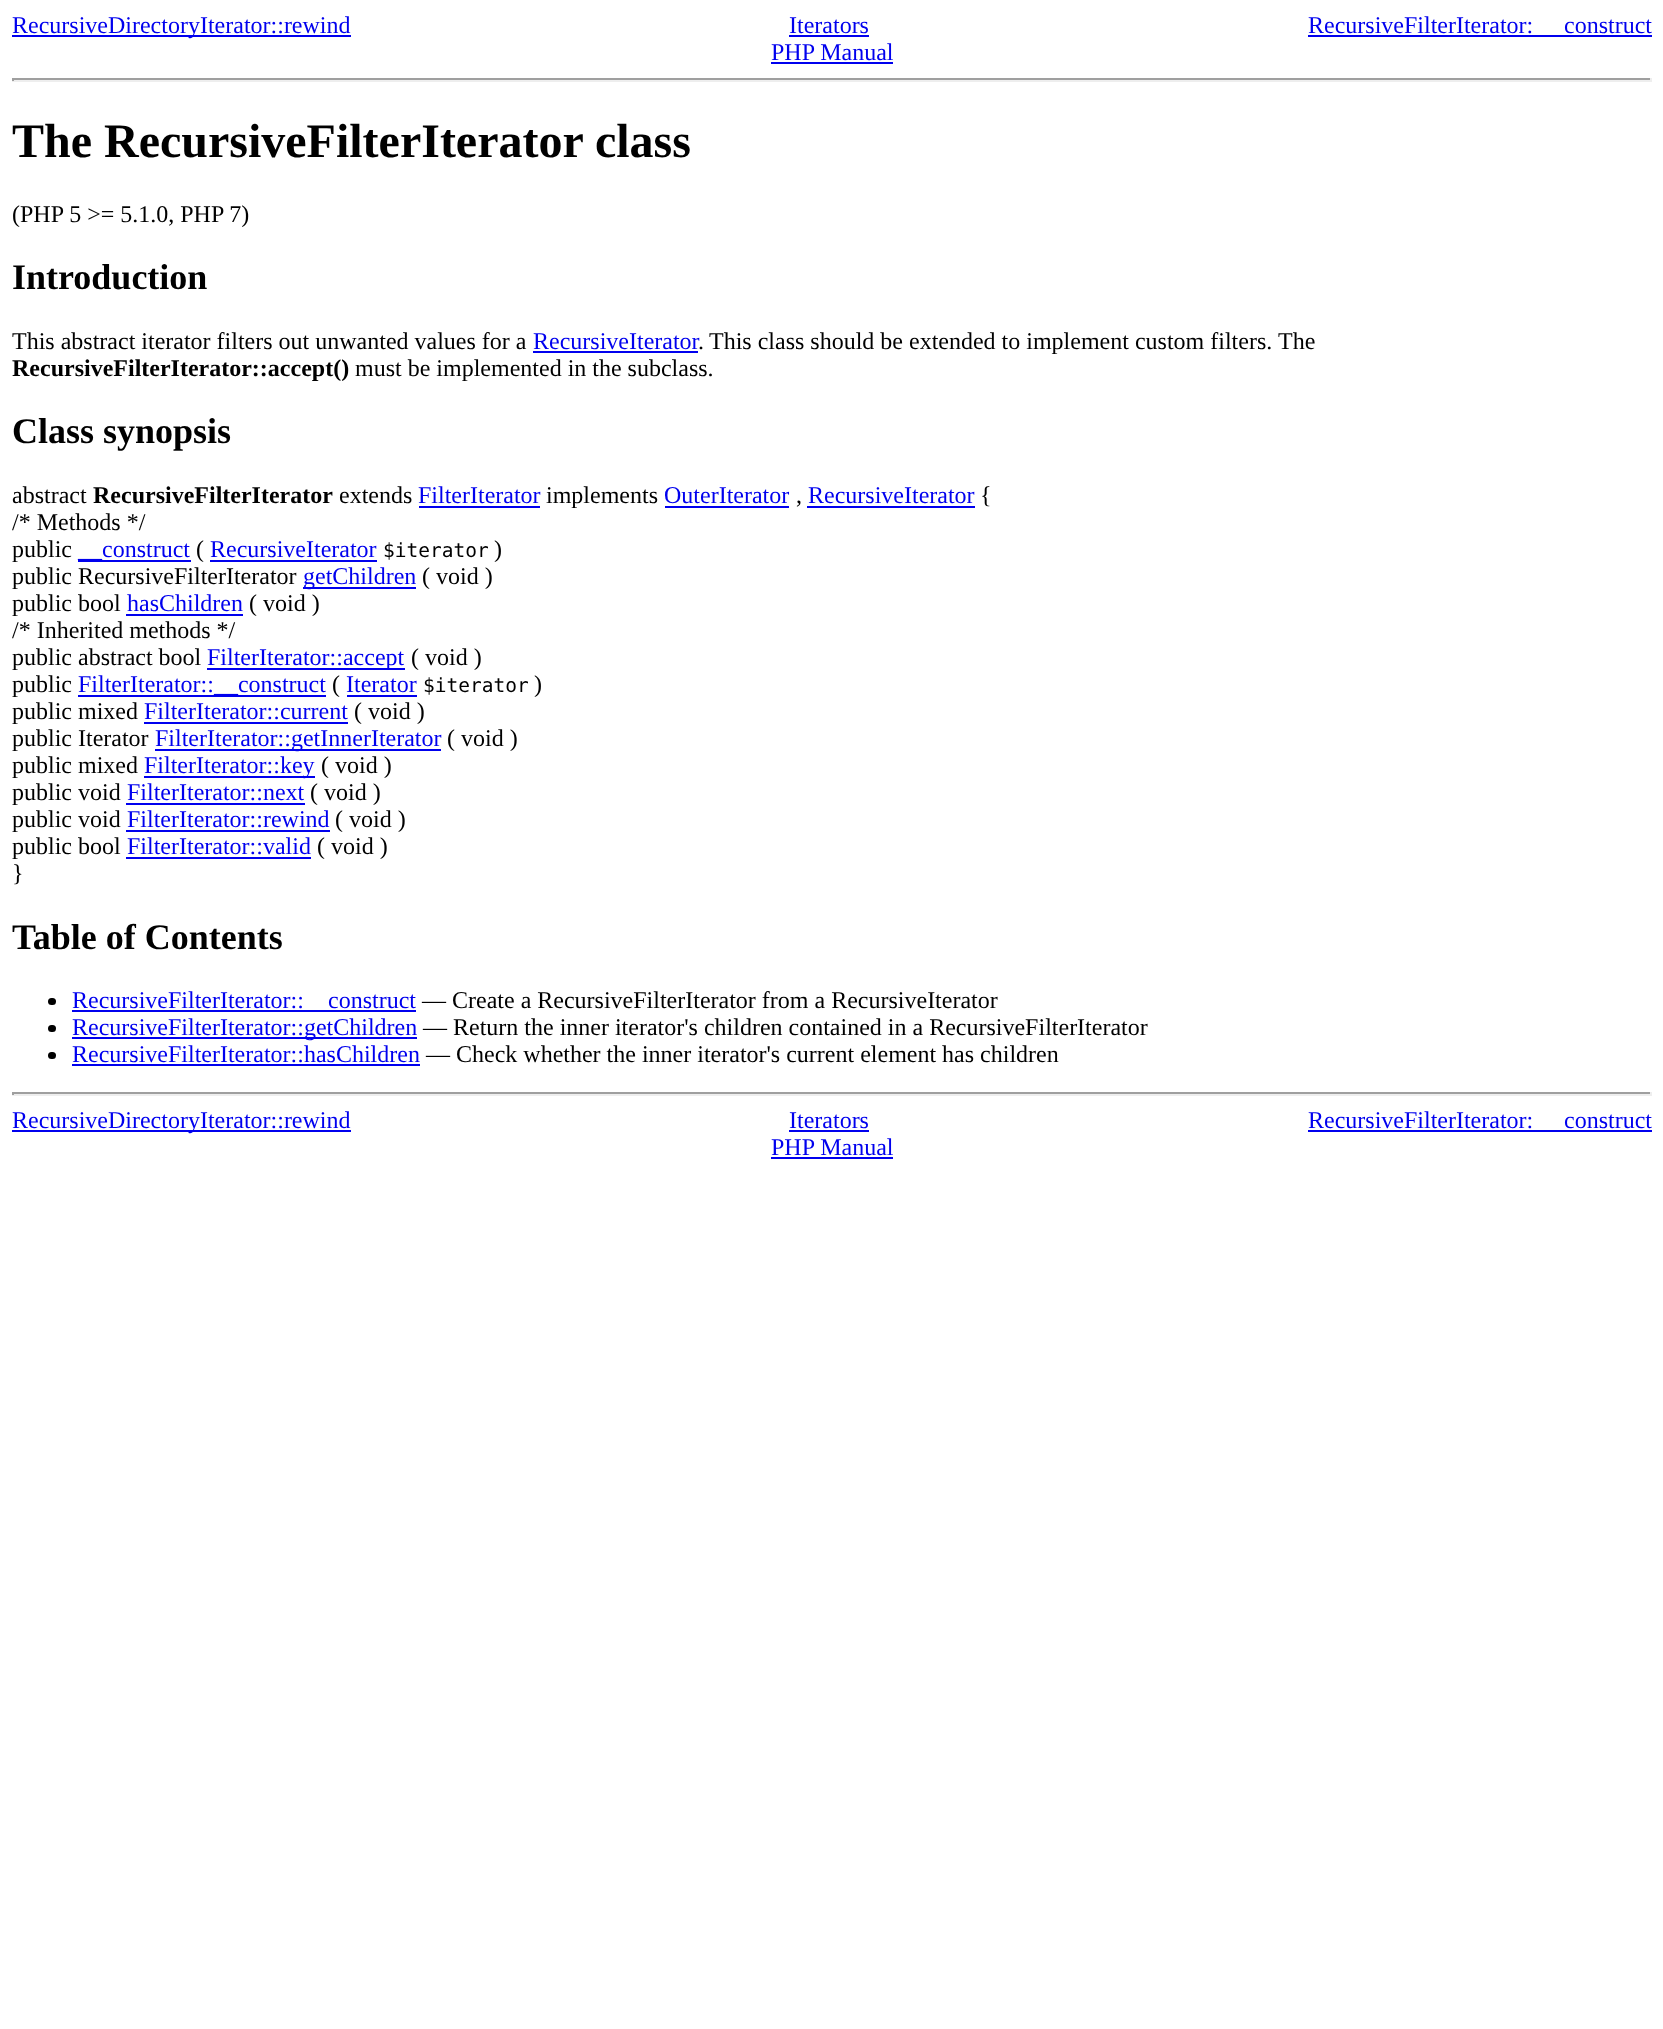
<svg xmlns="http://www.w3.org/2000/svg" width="1663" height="2029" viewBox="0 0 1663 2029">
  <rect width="100%" height="100%" fill="#fff"/>
  <path d="M12 35h339v2H12z" fill="#00e"/>
  <path d="M789 35h80v2H789z" fill="#00e"/>
  <path d="M1308 35h344v2H1308z" fill="#00e"/>
  <path d="M771 62h122v2H771z" fill="#00e"/>
  <path d="M12 78h1640v2H12z" fill="#9f9f9f"/>
  <path d="M1650 78h2v3H1650z" fill="#eee"/>
  <path d="M12 80h1640v2H12z" fill="#eee"/>
  <path d="M12 78h2v3H12z" fill="#9f9f9f"/>
  <path d="M533 351h165v2H533z" fill="#00e"/>
  <path d="M419 506h121v2H419z" fill="#00e"/>
  <path d="M665 506h124v2H665z" fill="#00e"/>
  <path d="M807 506h168v2H807z" fill="#00e"/>
  <path d="M78 560h113v2H78z" fill="#00e"/>
  <path d="M210 560h167v2H210z" fill="#00e"/>
  <path d="M303 587h113v2H303z" fill="#00e"/>
  <path d="M126 614h117v2H126z" fill="#00e"/>
  <path d="M207 668h198v2H207z" fill="#00e"/>
  <path d="M78 695h248v2H78z" fill="#00e"/>
  <path d="M347 695h70v2H347z" fill="#00e"/>
  <path d="M144 722h204v2H144z" fill="#00e"/>
  <path d="M155 749h286v2H155z" fill="#00e"/>
  <path d="M144 776h171v2H144z" fill="#00e"/>
  <path d="M126 803h179v2H126z" fill="#00e"/>
  <path d="M126 830h204v2H126z" fill="#00e"/>
  <path d="M126 857h185v2H126z" fill="#00e"/>
  <rect x="48" y="998" width="8" height="7" rx="3.5" fill="#000"/>
  <path d="M72 1010h344v2H72z" fill="#00e"/>
  <rect x="48" y="1025" width="8" height="7" rx="3.5" fill="#000"/>
  <path d="M72 1037h345v2H72z" fill="#00e"/>
  <rect x="48" y="1052" width="8" height="7" rx="3.5" fill="#000"/>
  <path d="M72 1064h348v2H72z" fill="#00e"/>
  <path d="M12 1092h1640v2H12z" fill="#9f9f9f"/>
  <path d="M1650 1092h2v3H1650z" fill="#eee"/>
  <path d="M12 1094h1640v2H12z" fill="#eee"/>
  <path d="M12 1092h2v3H12z" fill="#9f9f9f"/>
  <path d="M12 1130h339v2H12z" fill="#00e"/>
  <path d="M789 1130h80v2H789z" fill="#00e"/>
  <path d="M1308 1130h344v2H1308z" fill="#00e"/>
  <path d="M771 1157h122v2H771z" fill="#00e"/>
  <g font-family="Liberation Serif" font-size="24" fill="#00e">
    <text x="12" y="33">RecursiveDirectoryIterator::rewind</text>
    <text x="789" y="33">Iterators</text>
    <text x="1308" y="33">RecursiveFilterIterator:</text>
    <text x="1564" y="33">construct</text>
    <text x="771" y="60">PHP Manual</text>
  </g>
  <text x="12" y="157" font-family="Liberation Serif" font-size="48" font-weight="bold" fill="#000">The RecursiveFilterIterator class</text>
  <text x="12" y="222" font-family="Liberation Serif" font-size="24" fill="#000">(PHP 5 &gt;= 5.1.0, PHP 7)</text>
  <text x="12" y="289" font-family="Liberation Serif" font-size="36" font-weight="bold" fill="#000">Introduction</text>
  <text x="12" y="349" font-family="Liberation Serif" font-size="24" fill="#000">This abstract iterator filters out unwanted values for a</text>
  <text x="533" y="349" font-family="Liberation Serif" font-size="24" fill="#00e">RecursiveIterator</text>
  <g font-family="Liberation Serif" font-size="24" fill="#000">
    <text x="698" y="349">.</text>
    <text x="709" y="349">This class should be extended to implement custom filters.</text>
    <text x="1278" y="349">The</text>
  </g>
  <text x="12" y="376" font-family="Liberation Serif" font-size="24" font-weight="bold" fill="#000">RecursiveFilterIterator::accept()</text>
  <text x="355" y="376" font-family="Liberation Serif" font-size="24" fill="#000">must be implemented in the subclass.</text>
  <text x="12" y="443" font-family="Liberation Serif" font-size="36" font-weight="bold" fill="#000">Class synopsis</text>
  <text x="12" y="503" font-family="Liberation Serif" font-size="24" fill="#000">abstract</text>
  <text x="93" y="503" font-family="Liberation Serif" font-size="24" font-weight="bold" fill="#000">RecursiveFilterIterator</text>
  <text x="339" y="503" font-family="Liberation Serif" font-size="24" fill="#000">extends</text>
  <text x="418" y="503" font-family="Liberation Serif" font-size="24" fill="#00e">FilterIterator</text>
  <text x="546" y="503" font-family="Liberation Serif" font-size="24" fill="#000">implements</text>
  <text x="664" y="503" font-family="Liberation Serif" font-size="24" fill="#00e">OuterIterator</text>
  <text x="796" y="503" font-family="Liberation Serif" font-size="24" fill="#000">,</text>
  <text x="808" y="503" font-family="Liberation Serif" font-size="24" fill="#00e">RecursiveIterator</text>
  <g font-family="Liberation Serif" font-size="24" fill="#000">
    <text x="980" y="503">{</text>
    <text x="12" y="530">/* Methods */</text>
    <text x="12" y="557">public</text>
  </g>
  <text x="78" y="557" font-family="Liberation Serif" font-size="24" fill="#00e">__construct</text>
  <text x="196" y="557" font-family="Liberation Serif" font-size="24" fill="#000">(</text>
  <text x="210" y="557" font-family="Liberation Serif" font-size="24" fill="#00e">RecursiveIterator</text>
  <text x="383" y="557" font-family="DejaVu Sans Mono" font-size="19.5" fill="#000">$iterator</text>
  <g font-family="Liberation Serif" font-size="24" fill="#000">
    <text x="494" y="557">)</text>
    <text x="12" y="584">public RecursiveFilterIterator</text>
  </g>
  <text x="303" y="584" font-family="Liberation Serif" font-size="24" fill="#00e">getChildren</text>
  <g font-family="Liberation Serif" font-size="24" fill="#000">
    <text x="422" y="584">( void )</text>
    <text x="12" y="611">public bool</text>
  </g>
  <text x="127" y="611" font-family="Liberation Serif" font-size="24" fill="#00e">hasChildren</text>
  <g font-family="Liberation Serif" font-size="24" fill="#000">
    <text x="249" y="611">( void )</text>
    <text x="12" y="638">/* Inherited methods */</text>
    <text x="12" y="665">public abstract bool</text>
  </g>
  <text x="207" y="665" font-family="Liberation Serif" font-size="24" fill="#00e">FilterIterator::accept</text>
  <g font-family="Liberation Serif" font-size="24" fill="#000">
    <text x="411" y="665">( void )</text>
    <text x="12" y="692">public</text>
  </g>
  <text x="78" y="692" font-family="Liberation Serif" font-size="24" fill="#00e">FilterIterator::__construct</text>
  <text x="332" y="692" font-family="Liberation Serif" font-size="24" fill="#000">(</text>
  <text x="346" y="692" font-family="Liberation Serif" font-size="24" fill="#00e">Iterator</text>
  <text x="423" y="692" font-family="DejaVu Sans Mono" font-size="19.5" fill="#000">$iterator</text>
  <g font-family="Liberation Serif" font-size="24" fill="#000">
    <text x="534" y="692">)</text>
    <text x="12" y="719">public mixed</text>
  </g>
  <text x="144" y="719" font-family="Liberation Serif" font-size="24" fill="#00e">FilterIterator::current</text>
  <g font-family="Liberation Serif" font-size="24" fill="#000">
    <text x="354" y="719">( void )</text>
    <text x="12" y="746">public Iterator</text>
  </g>
  <text x="155" y="746" font-family="Liberation Serif" font-size="24" fill="#00e">FilterIterator::getInnerIterator</text>
  <g font-family="Liberation Serif" font-size="24" fill="#000">
    <text x="447" y="746">( void )</text>
    <text x="12" y="773">public mixed</text>
  </g>
  <text x="144" y="773" font-family="Liberation Serif" font-size="24" fill="#00e">FilterIterator::key</text>
  <g font-family="Liberation Serif" font-size="24" fill="#000">
    <text x="321" y="773">( void )</text>
    <text x="12" y="800">public void</text>
  </g>
  <text x="127" y="800" font-family="Liberation Serif" font-size="24" fill="#00e">FilterIterator::next</text>
  <g font-family="Liberation Serif" font-size="24" fill="#000">
    <text x="310" y="800">( void )</text>
    <text x="12" y="827">public void</text>
  </g>
  <text x="127" y="827" font-family="Liberation Serif" font-size="24" fill="#00e">FilterIterator::rewind</text>
  <g font-family="Liberation Serif" font-size="24" fill="#000">
    <text x="335" y="827">( void )</text>
    <text x="12" y="854">public bool</text>
  </g>
  <text x="127" y="854" font-family="Liberation Serif" font-size="24" fill="#00e">FilterIterator::valid</text>
  <g font-family="Liberation Serif" font-size="24" fill="#000">
    <text x="317" y="854">( void )</text>
    <text x="12" y="881">}</text>
  </g>
  <text x="12" y="949" font-family="Liberation Serif" font-size="36" font-weight="bold" fill="#000">Table of Contents</text>
  <g font-family="Liberation Serif" font-size="24" fill="#00e">
    <text x="72" y="1008">RecursiveFilterIterator::</text>
    <text x="328" y="1008">construct</text>
  </g>
  <text x="422" y="1008" font-family="Liberation Serif" font-size="24" fill="#000">— Create a RecursiveFilterIterator from a RecursiveIterator</text>
  <text x="72" y="1035" font-family="Liberation Serif" font-size="24" fill="#00e">RecursiveFilterIterator::getChildren</text>
  <text x="423" y="1035" font-family="Liberation Serif" font-size="24" fill="#000">— Return the inner iterator's children contained in a RecursiveFilterIterator</text>
  <text x="72" y="1062" font-family="Liberation Serif" font-size="24" fill="#00e">RecursiveFilterIterator::hasChildren</text>
  <text x="426" y="1062" font-family="Liberation Serif" font-size="24" fill="#000">— Check whether the inner iterator's current element has children</text>
  <g font-family="Liberation Serif" font-size="24" fill="#00e">
    <text x="12" y="1128">RecursiveDirectoryIterator::rewind</text>
    <text x="789" y="1128">Iterators</text>
    <text x="1308" y="1128">RecursiveFilterIterator:</text>
    <text x="1564" y="1128">construct</text>
    <text x="771" y="1155">PHP Manual</text>
  </g>
</svg>
